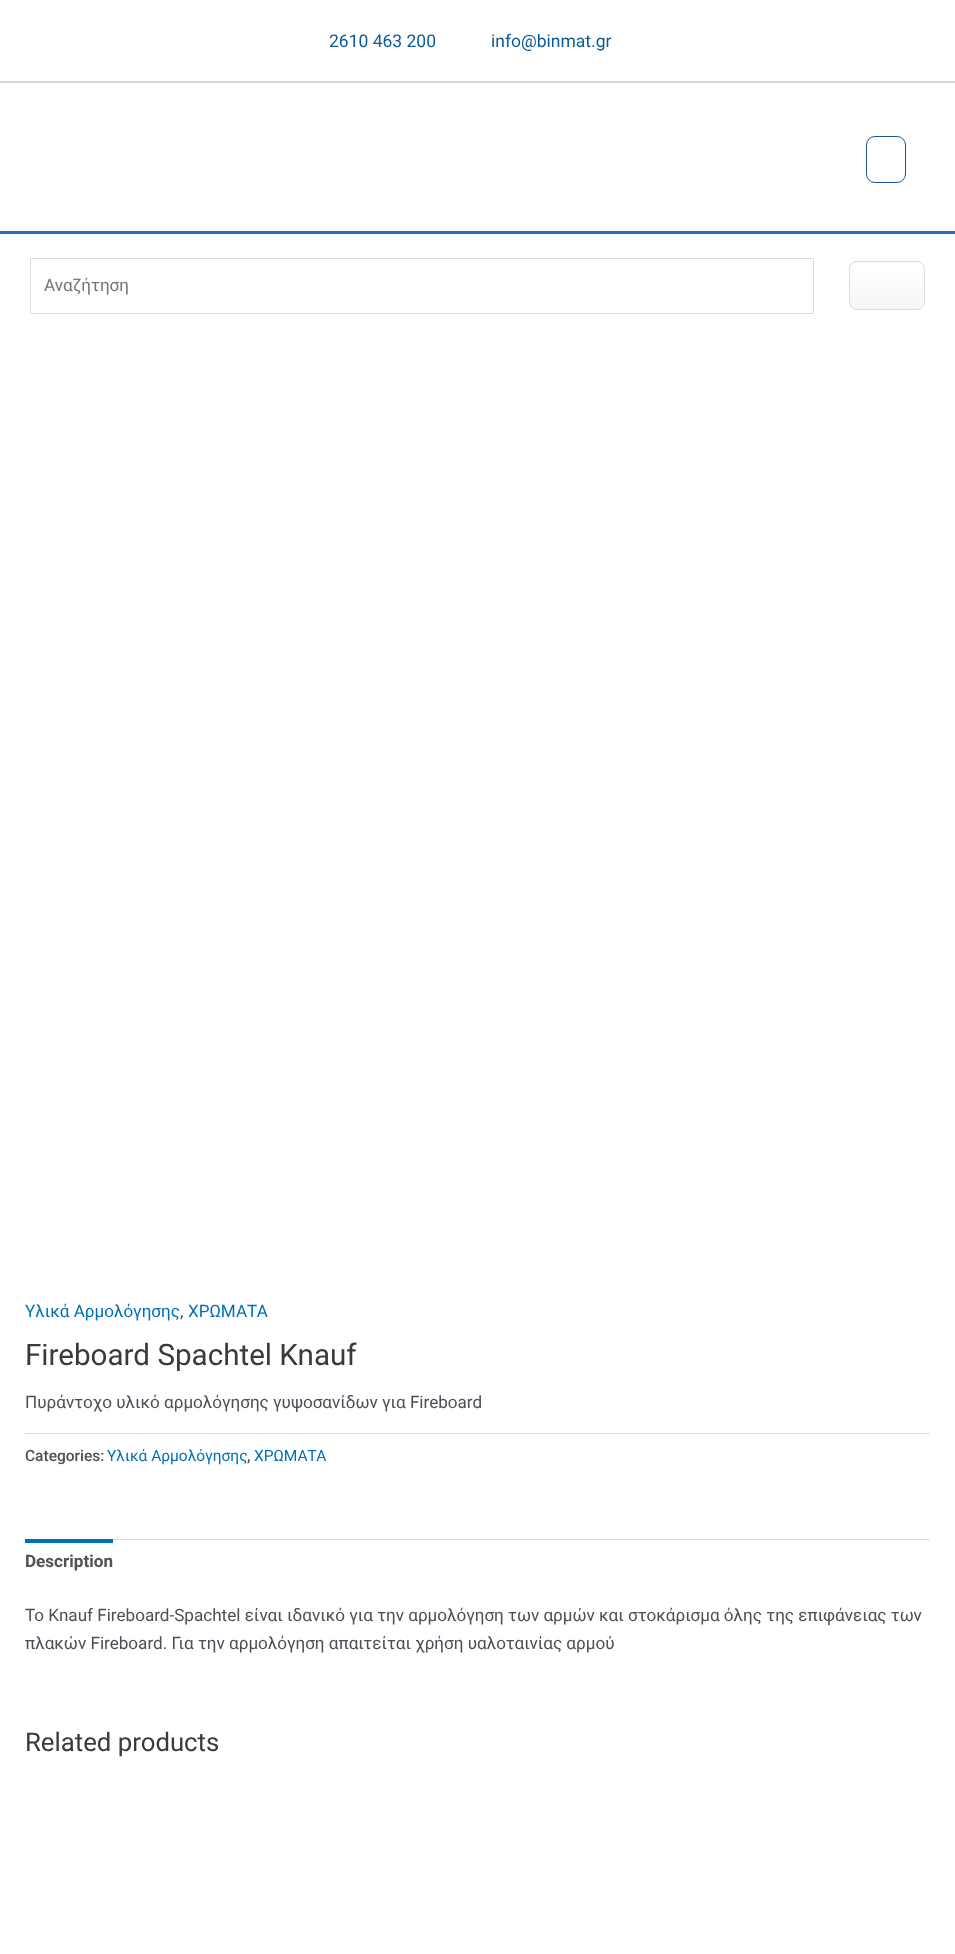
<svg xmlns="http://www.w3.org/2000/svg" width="955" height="1954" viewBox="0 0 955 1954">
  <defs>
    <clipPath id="clip1"><rect x="849" y="261" width="76" height="49" rx="8"/></clipPath>
    <linearGradient id="g1" gradientUnits="userSpaceOnUse" x1="887" y1="216" x2="887" y2="263"><stop offset="0.05" stop-color="#fff"/><stop offset="1" stop-color="#f6f6f6"/></linearGradient>
    <linearGradient id="g2" gradientUnits="userSpaceOnUse" x1="887" y1="263" x2="887" y2="309"><stop offset="0.05" stop-color="#fff"/><stop offset="1" stop-color="#f6f6f6"/></linearGradient>
  </defs>
  <rect width="100%" height="100%" fill="#fff"/>
  <path d="M-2-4V83H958V-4ZM0 0V81H955V0Z" fill="#d6d6d6" fill-rule="evenodd"/>
  <path d="M0 231h955v3H0z" fill="#256ebb"/>
  <rect x="866.5" y="136.5" width="39" height="46" rx="8.5" fill="none" stroke="#1d568e"/>
  <path d="M30.5 258.5h783v55H30.5z" fill="none" stroke="#ddd"/>
  <g clip-path="url(#clip1)">
    <path d="M849 261h76v2H849z" fill="url(#g1)"/>
    <path d="M849 263h76v46H849z" fill="url(#g2)"/>
  </g>
  <rect x="849.5" y="261.5" width="75" height="48" rx="7.5" fill="none" stroke="#dcdcdc"/>
  <path d="M25 1433h905v1H25z" fill="#ddd"/>
  <path d="M113 1539h817v1H113z" fill="#ddd"/>
  <path d="M25 1539h88v4H25z" fill="#0170b9"/>
  <g font-family="Roboto" font-size="17.5" fill="#0d5b96">
    <text x="329" y="47">2610 463 200</text>
    <text x="491" y="47">info@binmat.gr</text>
  </g>
  <text x="44" y="291" font-family="Roboto" font-size="17.1" fill="#757575">Αναζήτηση</text>
  <g font-family="Roboto" font-size="17.1" fill="#0170b9">
    <text x="25" y="1317">Υλικά Αρμολόγησης</text>
    <text x="188" y="1317">ΧΡΩΜΑΤΑ</text>
  </g>
  <text x="180" y="1317" font-family="Roboto" font-size="17.1" fill="#4b4f58">,</text>
  <text x="25" y="1365" font-family="Roboto" font-size="29.6" fill="#3a3a3a">Fireboard Spachtel Knauf</text>
  <text x="25" y="1408" font-family="Roboto" font-size="17.1" fill="#4b4f58">Πυράντοχο υλικό αρμολόγησης γυψοσανίδων για Fireboard</text>
  <text x="25" y="1461" font-family="Roboto" font-size="15.5" font-weight="500" fill="#4b4f58">Categories:</text>
  <g font-family="Roboto" font-size="15.5" fill="#0170b9">
    <text x="107" y="1461">Υλικά Αρμολόγησης</text>
    <text x="254" y="1461">ΧΡΩΜΑΤΑ</text>
  </g>
  <text x="247" y="1461" font-family="Roboto" font-size="15.5" font-weight="500" fill="#4b4f58">,</text>
  <text x="25" y="1567" font-family="Roboto" font-size="17.1" font-weight="bold" fill="#515151">Description</text>
  <g font-family="Roboto" font-size="17.1" fill="#4b4f58">
    <text x="25" y="1621">Το Knauf Fireboard-Spachtel είναι ιδανικό για την αρμολόγηση των αρμών και στοκάρισμα όλης της επιφάνειας των</text>
    <text x="25" y="1649">πλακών Fireboard. Για την αρμολόγηση απαιτείται χρήση υαλοταινίας αρμού</text>
  </g>
  <text x="25" y="1751" font-family="Roboto" font-size="25.75" fill="#3a3a3a">Related products</text>
</svg>
